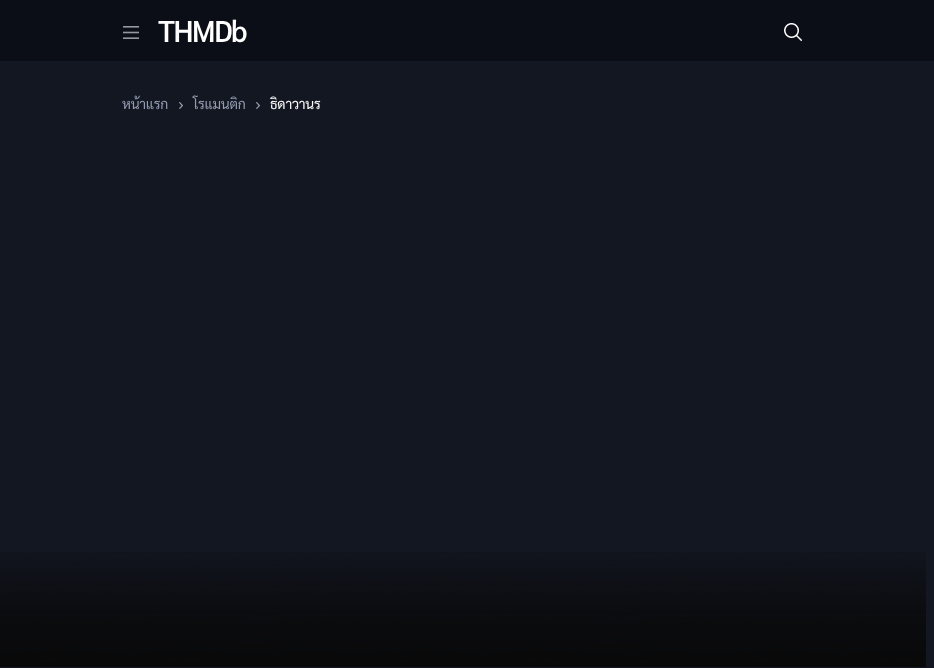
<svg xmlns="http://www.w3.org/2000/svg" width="934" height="668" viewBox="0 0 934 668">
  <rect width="100%" height="100%" fill="#131722"/>
  <path d="M0 0h934v61H0z" fill="#0c0e17"/>
  <image x="123" y="26" width="16" height="13" href="img/1.png"/>
  <image x="784" y="23" width="18" height="18" href="img/2.png"/>
  <image x="179" y="102" width="4" height="7" href="img/3.png"/>
  <image x="256" y="102" width="4" height="7" href="img/3.png"/>
  <image x="0" y="552" width="926" height="115" href="img/4.png"/>
  <text x="158" y="42" font-family="Sarabun" font-size="29" font-weight="bold" letter-spacing="-1" fill="#fff">THMDb</text>
  <g font-family="Sarabun" font-size="14" letter-spacing="-0.25" fill="#949cb0">
    <text x="122" y="109">หน้าแรก</text>
    <text x="193" y="109">โรแมนติก</text>
  </g>
  <text x="270" y="109" font-family="Sarabun" font-size="14" letter-spacing="-0.25" fill="#fff">ธิดาวานร</text>
</svg>
